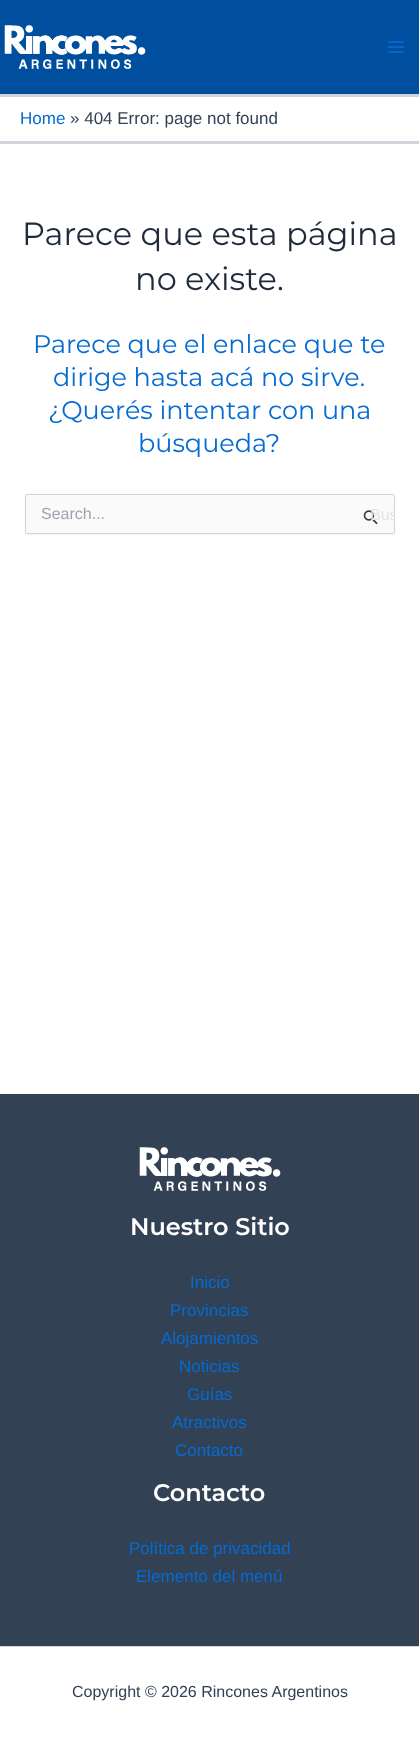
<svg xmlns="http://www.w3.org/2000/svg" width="419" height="1747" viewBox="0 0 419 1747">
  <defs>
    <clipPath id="clip1"><rect x="350" y="494" width="45" height="42" rx="2"/></clipPath>
  </defs>
  <rect width="100%" height="100%" fill="#fff"/>
  <path d="M0 0h419v94H0z" fill="#004f9e"/>
  <path d="M0 94h419v3H0z" fill="#d1d5db"/>
  <image x="4" y="25" width="142" height="44" href="img/1.png"/>
  <image x="387" y="41" width="18" height="12" href="img/2.png"/>
  <path d="M0 141h419v3H0z" fill="#d1d5db"/>
  <rect x="25" y="495" width="370" height="40" rx="2" fill="#0000000d" filter="blur(1px)"/>
  <rect x="25.5" y="494.5" width="369" height="39" rx="1.5" fill="#fafafa" stroke="#d1d5db"/>
  <image x="363" y="510" width="15" height="15" href="img/3.png"/>
  <path d="M0 1094h419v552H0z" fill="#334155"/>
  <image x="139" y="1147" width="142" height="44" href="img/4.png"/>
  <path d="M0 1646h419v1H0z" fill="#d1d5db"/>
  <text x="20" y="124" font-family="Liberation Sans" font-size="17" fill="#046bd2">Home</text>
  <text x="70" y="124" font-family="Liberation Sans" font-size="17" fill="#334155">» 404 Error: page not found</text>
  <g font-family="Montserrat" font-size="32" fill="#1e293b">
    <text x="22" y="245">Parece que esta página</text>
    <text x="135" y="290">no existe.</text>
  </g>
  <g font-family="Montserrat" font-size="25.5" fill="#046bd2">
    <text x="33" y="353">Parece que el enlace que te</text>
    <text x="53" y="386">dirige hasta acá no sirve.</text>
    <text x="48" y="419">¿Querés intentar con una</text>
    <text x="138" y="452">búsqueda?</text>
  </g>
  <text x="41" y="519" font-family="Liberation Sans" font-size="16" fill="#9ca3af">Search...</text>
  <g clip-path="url(#clip1)">
    <text x="370" y="520" font-family="Liberation Sans" font-size="16" fill="#e4e4e5">Bus</text>
  </g>
  <text x="130" y="1235" font-family="Montserrat" font-size="24" font-weight="600" fill="#fff">Nuestro Sitio</text>
  <g font-family="Liberation Sans" font-size="17" fill="#046bd2">
    <text x="190" y="1288">Inicio</text>
    <text x="170" y="1316">Provincias</text>
    <text x="161" y="1344">Alojamientos</text>
    <text x="179" y="1372">Noticias</text>
    <text x="187" y="1400">Guías</text>
    <text x="172" y="1428">Atractivos</text>
    <text x="175" y="1456">Contacto</text>
  </g>
  <text x="153" y="1501" font-family="Montserrat" font-size="24" font-weight="600" fill="#fff">Contacto</text>
  <g font-family="Liberation Sans" font-size="17" fill="#046bd2">
    <text x="129" y="1554">Política de privacidad</text>
    <text x="136" y="1582">Elemento del menú</text>
  </g>
  <text x="72" y="1697" font-family="Liberation Sans" font-size="16" fill="#334155">Copyright © 2026 Rincones Argentinos</text>
</svg>
